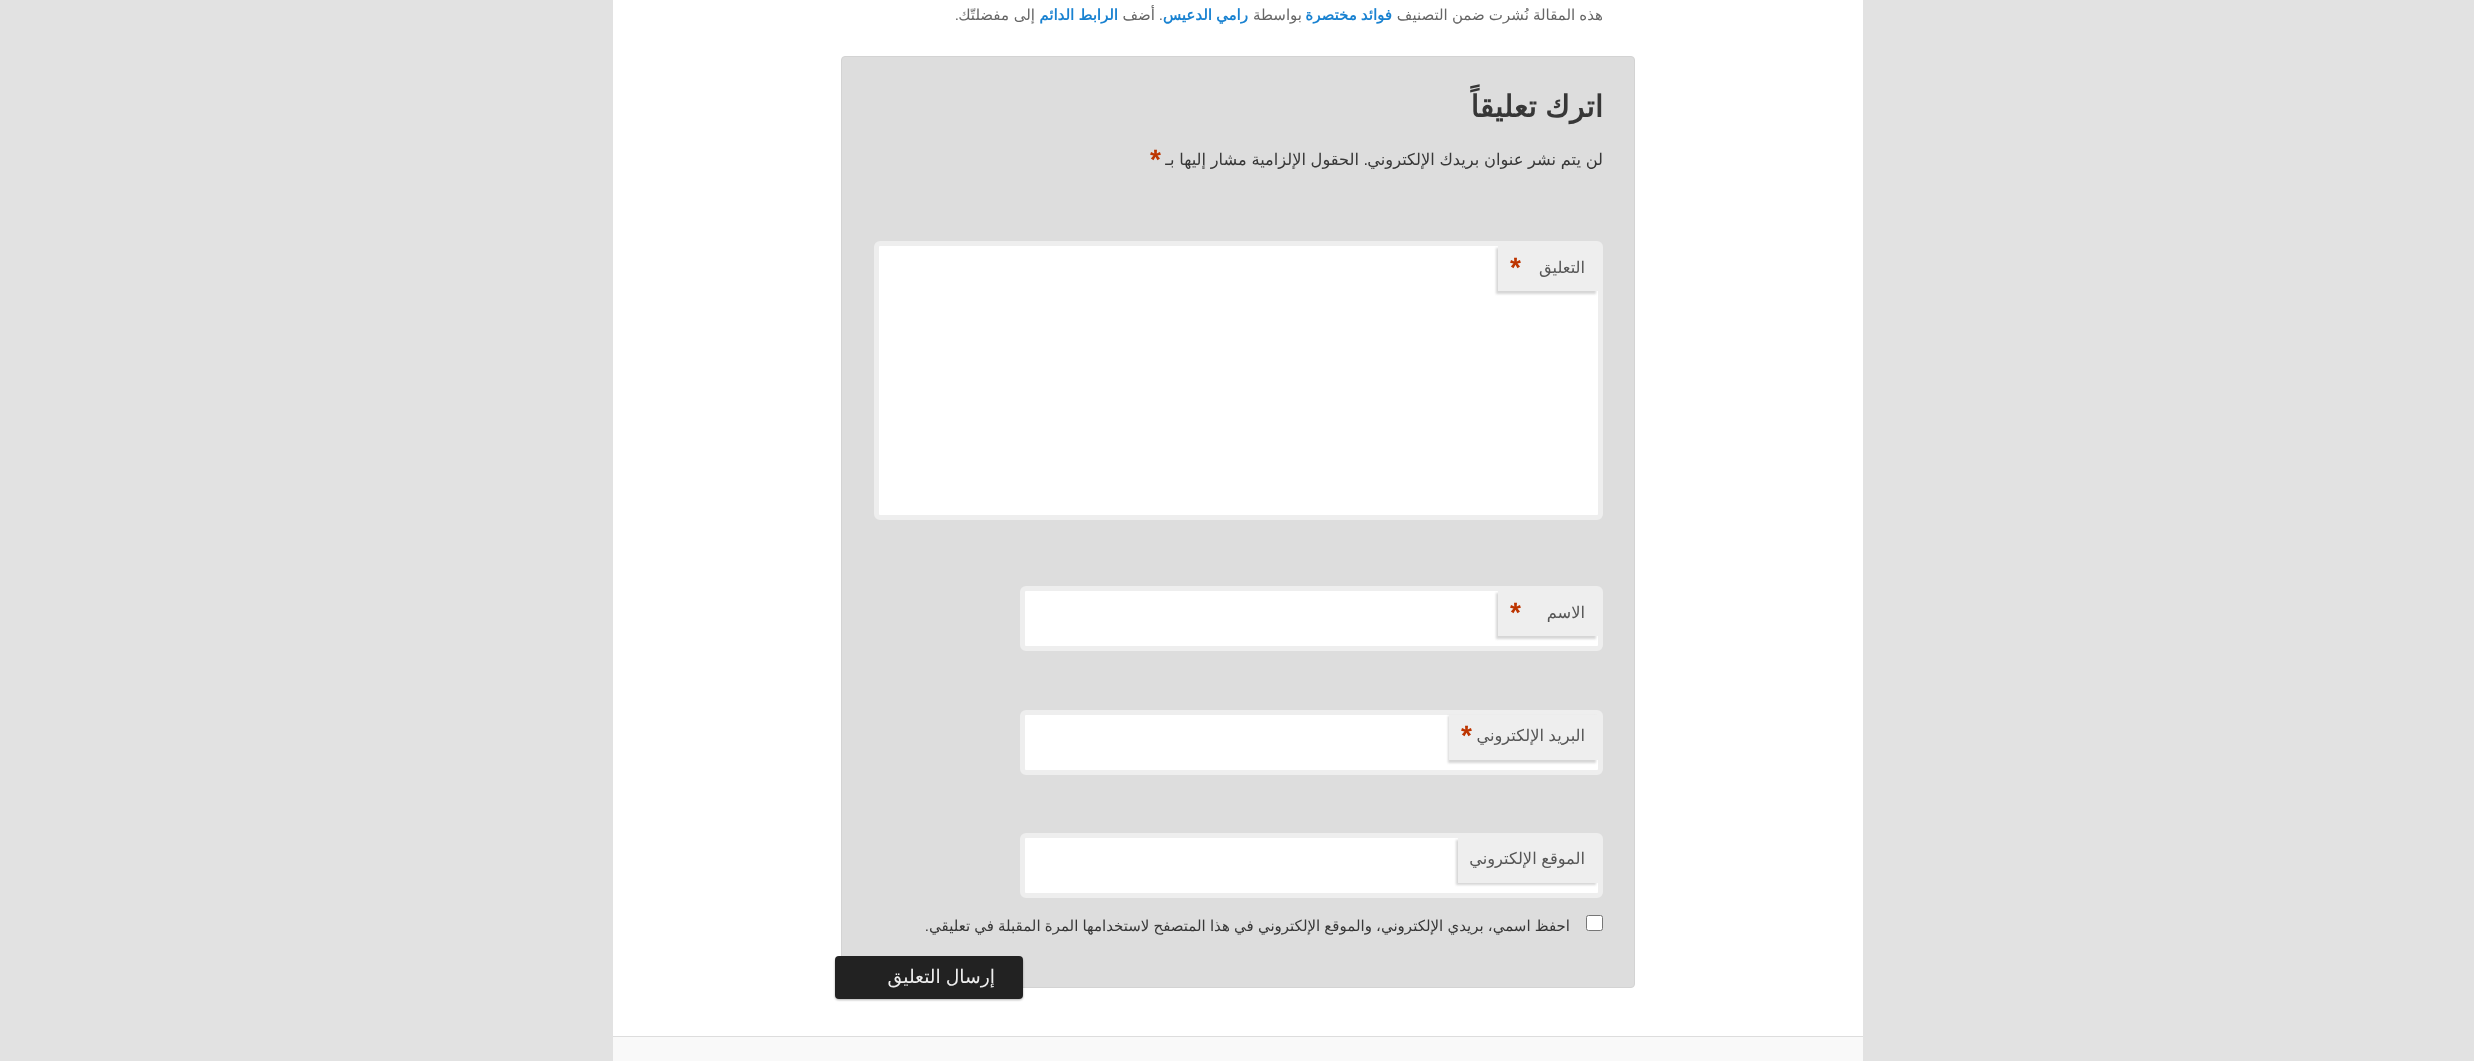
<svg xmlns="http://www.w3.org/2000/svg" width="2474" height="1061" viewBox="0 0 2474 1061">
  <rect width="100%" height="100%" fill="#e2e2e2"/>
  <path d="M613 0h1250v1036H613z" fill="#fff"/>
  <rect x="841.5" y="56.5" width="793" height="931" rx="3.5" fill="#ddd" stroke="#d3d3d3"/>
  <rect x="876.5" y="243.5" width="724" height="274" rx="3.5" fill="#fff" stroke="#eee" stroke-width="5"/>
  <path d="M1496 248h100v46H1496z" fill="#cccccccc" filter="blur(1px)"/>
  <path d="M1498 246h100v45H1498z" fill="#eee"/>
  <rect x="1022.5" y="588.5" width="578" height="60" rx="3.5" fill="#fff" stroke="#eee" stroke-width="5"/>
  <path d="M1496 593h100v46H1496z" fill="#cccccccc" filter="blur(1px)"/>
  <path d="M1498 591h100v45H1498z" fill="#eee"/>
  <rect x="1022.5" y="712.5" width="578" height="60" rx="3.5" fill="#fff" stroke="#eee" stroke-width="5"/>
  <path d="M1448 716h148v47H1448z" fill="#cccccccc" filter="blur(1px)"/>
  <path d="M1449 715h149v45H1449z" fill="#eee"/>
  <rect x="1022.5" y="835.5" width="578" height="60" rx="3.5" fill="#fff" stroke="#eee" stroke-width="5"/>
  <path d="M1456 840h140v45H1456z" fill="#cccccccc" filter="blur(1px)"/>
  <path d="M1458 838h140v45H1458z" fill="#eee"/>
  <rect x="1586.5" y="915.5" width="16" height="15" rx="2" fill="#fff" stroke="#767676"/>
  <rect x="835" y="958" width="188" height="42" rx="4" fill="#0000004d" filter="blur(1px)"/>
  <rect x="835" y="956" width="188" height="43" rx="4" fill="#222"/>
  <path d="M613 1037h1250v24H613z" fill="#f9f9f9"/>
  <path d="M613 1036h1250v1H613z" fill="#ddd"/>
  <text x="1603" y="20" word-spacing="-0.6" font-family="DejaVu Sans" font-size="15" direction="rtl" fill="#666">هذه المقالة نُشرت ضمن التصنيف</text>
  <text x="1392" y="20" word-spacing="-0.6" font-family="DejaVu Sans" font-size="15" font-weight="bold" direction="rtl" fill="#1982d1">فوائد مختصرة</text>
  <text x="1302" y="20" font-family="DejaVu Sans" font-size="15" direction="rtl" fill="#666">بواسطة</text>
  <text x="1248" y="20" word-spacing="-0.6" font-family="DejaVu Sans" font-size="15" font-weight="bold" direction="rtl" fill="#1982d1">رامي الدعيس</text>
  <text x="1163" y="20" font-family="Liberation Sans" font-size="15" direction="rtl" fill="#666">.</text>
  <text x="1155" y="20" font-family="DejaVu Sans" font-size="15" direction="rtl" fill="#666">أضف</text>
  <text x="1118" y="20" word-spacing="-0.6" font-family="DejaVu Sans" font-size="15" font-weight="bold" direction="rtl" fill="#1982d1">الرابط الدائم</text>
  <text x="1035" y="20" font-family="DejaVu Sans" font-size="15" direction="rtl" fill="#666">إلى مفضلتّك</text>
  <text x="959" y="20" font-family="Liberation Sans" font-size="15" direction="rtl" fill="#666">.</text>
  <text x="1603" y="117" word-spacing="-1" font-family="DejaVu Sans" font-size="30" font-weight="bold" direction="rtl" fill="#373737">اترك تعليقاً</text>
  <text x="1603" y="165" word-spacing="-0.5" font-family="DejaVu Sans" font-size="16.25" direction="rtl" fill="#373737">لن يتم نشر عنوان بريدك الإلكتروني</text>
  <text x="1368" y="165" font-family="Liberation Sans" font-size="16.25" direction="rtl" fill="#373737">.</text>
  <text x="1359" y="165" word-spacing="-0.5" font-family="DejaVu Sans" font-size="16.25" direction="rtl" fill="#373737">الحقول الإلزامية مشار إليها بـ</text>
  <text x="1150" y="169" font-family="Liberation Sans" font-size="28" font-weight="bold" fill="#bd3500">*</text>
  <text x="1585" y="273" font-family="DejaVu Sans" font-size="16.25" direction="rtl" fill="#555">التعليق</text>
  <text x="1510" y="277" font-family="Liberation Sans" font-size="28" font-weight="bold" fill="#bd3500">*</text>
  <text x="1585" y="618" font-family="DejaVu Sans" font-size="16.25" direction="rtl" fill="#555">الاسم</text>
  <text x="1510" y="622" font-family="Liberation Sans" font-size="28" font-weight="bold" fill="#bd3500">*</text>
  <text x="1585" y="741" word-spacing="-0.5" font-family="DejaVu Sans" font-size="16.25" direction="rtl" fill="#555">البريد الإلكتروني</text>
  <text x="1461" y="745" font-family="Liberation Sans" font-size="28" font-weight="bold" fill="#bd3500">*</text>
  <text x="1585" y="864" word-spacing="-0.5" font-family="DejaVu Sans" font-size="16.25" direction="rtl" fill="#555">الموقع الإلكتروني</text>
  <text x="1570" y="931" word-spacing="-0.6" font-family="DejaVu Sans" font-size="15" direction="rtl" fill="#373737">احفظ اسمي، بريدي الإلكتروني، والموقع الإلكتروني في هذا المتصفح لاستخدامها المرة المقبلة في تعليقي</text>
  <text x="929" y="931" font-family="Liberation Sans" font-size="15" direction="rtl" fill="#373737">.</text>
  <text x="995" y="983" word-spacing="-1" font-family="DejaVu Sans" font-size="18.75" direction="rtl" fill="#eee">إرسال التعليق</text>
</svg>
